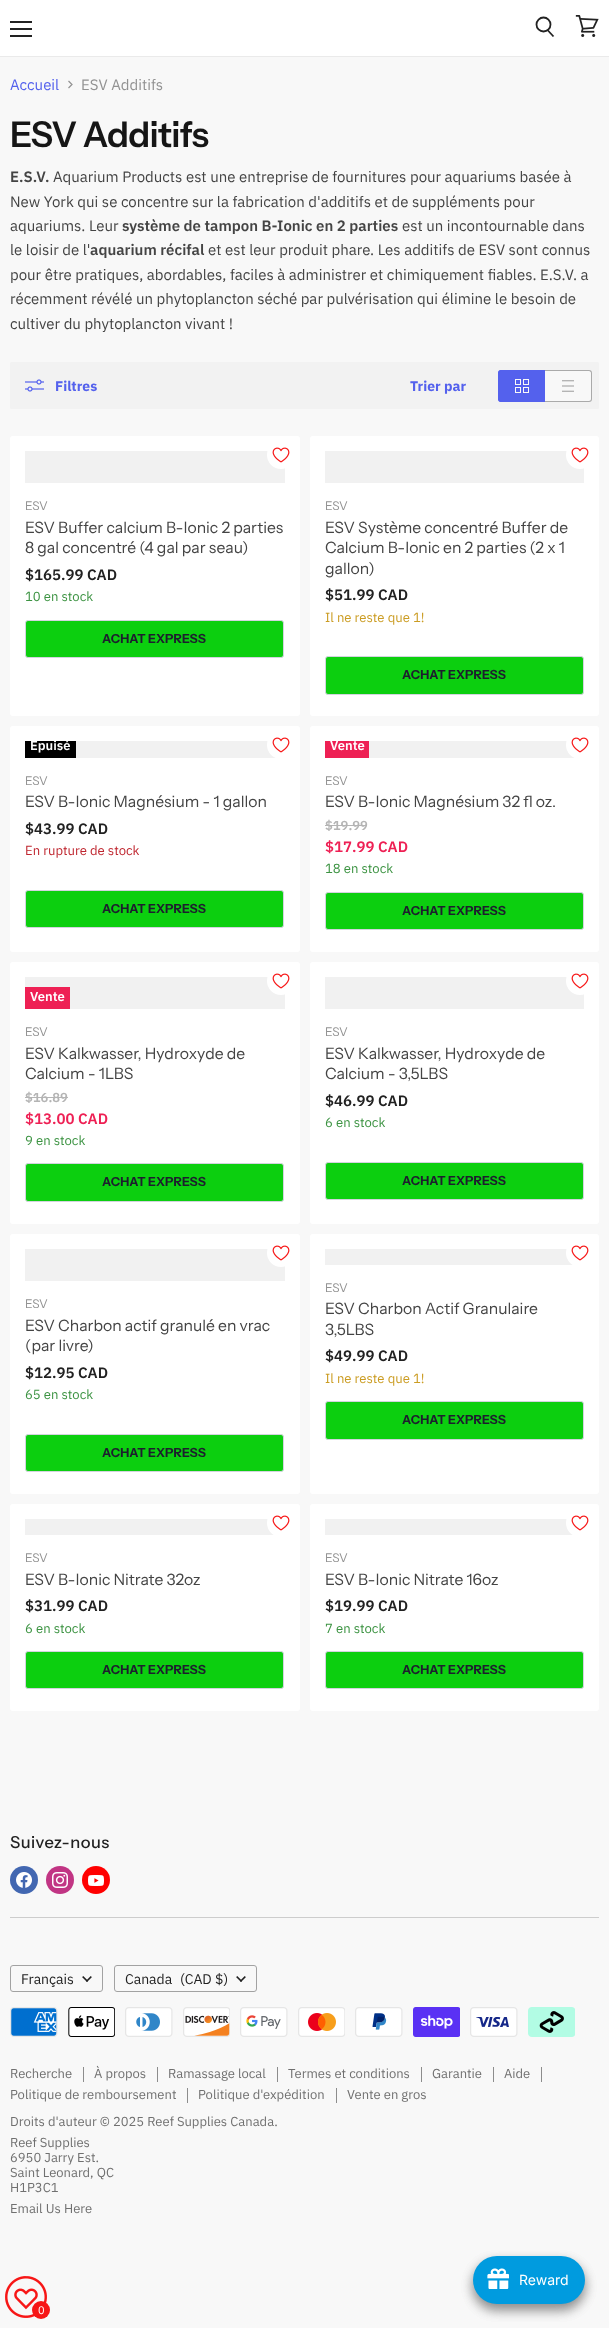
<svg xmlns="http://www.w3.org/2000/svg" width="609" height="2328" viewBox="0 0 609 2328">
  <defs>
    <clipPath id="clip1"><path d="M25 741h260v17H25z"/></clipPath>
  </defs>
  <rect width="100%" height="100%" fill="#f8f8f8"/>
  <path d="M0 0h609v56H0z" fill="#fff"/>
  <path d="M0 56h609v1H0z" fill="#eaeaea"/>
  <path d="M10 21h22v2H10z" fill="#222"/>
  <path d="M10 28h22v2H10z" fill="#222"/>
  <path d="M10 35h22v2H10z" fill="#222"/>
  <path d="M553.5 36.5L547.5 30" fill="none" stroke="#222" stroke-width="1.8"/>
  <circle cx="543.5" cy="24.5" r="7" fill="none" stroke="#222" stroke-width="1.8"/>
  <image x="575" y="15" width="24" height="22" href="img/1.png"/>
  <path d="M68.5 88L72 84.5L68.5 81" fill="none" stroke="#929292" stroke-width="1.2"/>
  <rect x="10" y="362" width="589" height="47" rx="1.5" fill="#f2f2f2"/>
  <image x="25" y="379" width="19" height="13" href="img/2.png"/>
  <path d="M501 370H545V402H501C499.5 402 498 400.5 498 399V373C498 371.5 499.5 370 501 370Z" fill="#5461ed"/>
  <path d="M501 370H545V402H501C499 402 498 401 498 399V373C498 371 499 370 501 370ZM501 371H545V401H501C500 401 499 400 499 399V373C499 372 500 371 501 371Z" fill="#5461ed" fill-rule="evenodd"/>
  <image x="515" y="379" width="14" height="14" href="img/3.png"/>
  <path d="M545 370H589C590.5 370 592 371.5 592 373V399C592 400.5 590.5 402 589 402H545Z" fill="#f8f8f8"/>
  <path d="M545 370H589C591 370 592 371 592 373V399C592 401 591 402 589 402H545ZM545 371H589C590 371 591 372 591 373V399C591 400 590 401 589 401H545Z" fill="#aaa" fill-rule="evenodd"/>
  <image x="562" y="380" width="12" height="12" href="img/4.png"/>
  <rect x="10" y="436" width="290" height="280" rx="3" fill="#fff"/>
  <path d="M25 451h260v32H25z" fill="#f1f1f1"/>
  <circle cx="281" cy="455" r="14" fill="#fff"/>
  <image x="272" y="447" width="18" height="16" href="img/5.png"/>
  <rect x="25.5" y="620.5" width="258" height="37" rx="2.5" fill="#0ccf0f" stroke="#d3d4de"/>
  <rect x="310" y="436" width="289" height="280" rx="3" fill="#fff"/>
  <path d="M325 451h259v32H325z" fill="#f1f1f1"/>
  <circle cx="580" cy="455" r="14" fill="#fff"/>
  <image x="571" y="447" width="18" height="16" href="img/5.png"/>
  <rect x="325.5" y="656.5" width="258" height="38" rx="2.5" fill="#0ccf0f" stroke="#d3d4de"/>
  <rect x="10" y="726" width="290" height="226" rx="3" fill="#fff"/>
  <path d="M25 741h51v17H25z" fill="#000"/>
  <path d="M76 741h200v17H76z" fill="#f1f1f1"/>
  <circle cx="281" cy="745" r="14" fill="#fff"/>
  <image x="272" y="737" width="18" height="16" href="img/5.png"/>
  <rect x="25.5" y="890.5" width="258" height="37" rx="2.5" fill="#0ccf0f" stroke="#d3d4de"/>
  <rect x="310" y="726" width="289" height="226" rx="3" fill="#fff"/>
  <path d="M325 741h44v17H325z" fill="#ee2054"/>
  <path d="M369 741h206v17H369z" fill="#f1f1f1"/>
  <circle cx="580" cy="745" r="14" fill="#fff"/>
  <image x="571" y="737" width="18" height="16" href="img/5.png"/>
  <path d="M325 825h42v1H325z" fill="#b4b4b4"/>
  <rect x="325.5" y="892.5" width="258" height="37" rx="2.5" fill="#0ccf0f" stroke="#d3d4de"/>
  <rect x="10" y="962" width="290" height="262" rx="3" fill="#fff"/>
  <path d="M25 977h260v32H25z" fill="#f1f1f1"/>
  <circle cx="281" cy="981" r="14" fill="#fff"/>
  <image x="272" y="973" width="18" height="16" href="img/5.png"/>
  <path d="M25 987h45v22H25z" fill="#ee2054"/>
  <path d="M25 1097h43v1H25z" fill="#b4b4b4"/>
  <rect x="25.5" y="1163.5" width="258" height="38" rx="2.5" fill="#0ccf0f" stroke="#d3d4de"/>
  <rect x="310" y="962" width="289" height="262" rx="3" fill="#fff"/>
  <path d="M325 977h259v32H325z" fill="#f1f1f1"/>
  <circle cx="580" cy="981" r="14" fill="#fff"/>
  <image x="571" y="973" width="18" height="16" href="img/5.png"/>
  <rect x="325.5" y="1162.5" width="258" height="37" rx="2.5" fill="#0ccf0f" stroke="#d3d4de"/>
  <rect x="10" y="1234" width="290" height="260" rx="3" fill="#fff"/>
  <path d="M25 1249h260v32H25z" fill="#f1f1f1"/>
  <circle cx="281" cy="1253" r="14" fill="#fff"/>
  <image x="272" y="1245" width="18" height="16" href="img/5.png"/>
  <rect x="25.5" y="1434.5" width="258" height="37" rx="2.5" fill="#0ccf0f" stroke="#d3d4de"/>
  <rect x="310" y="1234" width="289" height="260" rx="3" fill="#fff"/>
  <path d="M325 1249h248v16H325z" fill="#f1f1f1"/>
  <circle cx="580" cy="1253" r="14" fill="#fff"/>
  <image x="571" y="1245" width="18" height="16" href="img/5.png"/>
  <rect x="325.5" y="1401.5" width="258" height="38" rx="2.5" fill="#0ccf0f" stroke="#d3d4de"/>
  <rect x="10" y="1504" width="290" height="207" rx="3" fill="#fff"/>
  <path d="M25 1519h249v16H25z" fill="#f1f1f1"/>
  <circle cx="281" cy="1523" r="14" fill="#fff"/>
  <image x="272" y="1515" width="18" height="16" href="img/5.png"/>
  <rect x="25.5" y="1651.5" width="258" height="37" rx="2.5" fill="#0ccf0f" stroke="#d3d4de"/>
  <rect x="310" y="1504" width="289" height="207" rx="3" fill="#fff"/>
  <path d="M325 1519h248v16H325z" fill="#f1f1f1"/>
  <circle cx="580" cy="1523" r="14" fill="#fff"/>
  <image x="571" y="1515" width="18" height="16" href="img/5.png"/>
  <rect x="325.5" y="1651.5" width="258" height="37" rx="2.5" fill="#0ccf0f" stroke="#d3d4de"/>
  <path d="M10 1917h589v1H10z" fill="#cdcdcd"/>
  <circle cx="24" cy="1880" r="14" fill="#4267b1"/>
  <image x="16" y="1872" width="16" height="16" href="img/6.png"/>
  <circle cx="60" cy="1880" r="14" fill="#c13584"/>
  <image x="52" y="1872" width="16" height="16" href="img/7.png"/>
  <circle cx="96" cy="1880" r="14" fill="#f00"/>
  <image x="88" y="1875" width="16" height="11" href="img/8.png"/>
  <rect x="10.5" y="1965.5" width="92" height="26" rx="2.5" fill="none" stroke="#a2a2a2"/>
  <image x="82" y="1976" width="10" height="6" href="img/9.png"/>
  <rect x="114.5" y="1965.5" width="142" height="26" rx="2.5" fill="none" stroke="#a2a2a2"/>
  <image x="236" y="1976" width="10" height="6" href="img/9.png"/>
  <image x="10" y="2007" width="48" height="30" href="img/10.png"/>
  <image x="68" y="2007" width="47" height="30" href="img/11.png"/>
  <image x="125" y="2007" width="48" height="30" href="img/12.png"/>
  <image x="183" y="2007" width="47" height="30" href="img/13.png"/>
  <image x="240" y="2007" width="48" height="30" href="img/14.png"/>
  <image x="298" y="2007" width="47" height="30" href="img/15.png"/>
  <image x="355" y="2007" width="48" height="30" href="img/16.png"/>
  <image x="413" y="2007" width="47" height="30" href="img/17.png"/>
  <image x="470" y="2007" width="48" height="30" href="img/18.png"/>
  <image x="528" y="2007" width="47" height="30" href="img/19.png"/>
  <path d="M83 2067h1v15H83z" fill="#8d8d8d"/>
  <path d="M157 2067h1v15H157z" fill="#8d8d8d"/>
  <path d="M277 2067h1v15H277z" fill="#8d8d8d"/>
  <path d="M421 2067h1v15H421z" fill="#8d8d8d"/>
  <path d="M493 2067h1v15H493z" fill="#8d8d8d"/>
  <path d="M541 2067h1v15H541z" fill="#8d8d8d"/>
  <path d="M187 2088h1v15H187z" fill="#8d8d8d"/>
  <path d="M336 2088h1v15H336z" fill="#8d8d8d"/>
  <rect x="473" y="2262" width="112" height="48" rx="24" fill="#00000040" filter="blur(6px)"/>
  <rect x="473" y="2262" width="112" height="48" rx="24" fill="#00000040" filter="blur(6px)"/>
  <rect x="473" y="2256" width="112" height="48" rx="24" fill="#009bdf"/>
  <image x="487" y="2268" width="22" height="21" href="img/20.png"/>
  <image x="5" y="2276" width="42" height="42" href="img/21.png"/>
  <circle cx="41" cy="2310" r="9" fill="#f71616"/>
  <text x="10" y="90" font-family="IBM Plex Sans" font-size="15" fill="#5461ed">Accueil</text>
  <text x="81" y="90" font-family="IBM Plex Sans" font-size="15" fill="#929292">ESV Additifs</text>
  <text x="10" y="147" font-family="Instrument Sans" font-size="35.5" font-weight="600" letter-spacing="-0.75" fill="#161616">ESV Additifs</text>
  <text x="10" y="182" font-family="IBM Plex Sans" font-size="15" font-weight="600" fill="#444">E.S.V.</text>
  <g font-family="IBM Plex Sans" font-size="15" fill="#444">
    <text x="53" y="182">Aquarium Products est une entreprise de fournitures pour aquariums basée à</text>
    <text x="10" y="207">New York qui se concentre sur la fabrication d'additifs et de suppléments pour</text>
    <text x="10" y="231">aquariums. Leur</text>
  </g>
  <text x="122" y="231" font-family="IBM Plex Sans" font-size="15" font-weight="600" fill="#444">système de tampon B-Ionic en 2 parties</text>
  <g font-family="IBM Plex Sans" font-size="15" fill="#444">
    <text x="402" y="231">est un incontournable dans</text>
    <text x="10" y="255">le loisir de l'</text>
  </g>
  <text x="90" y="255" font-family="IBM Plex Sans" font-size="15" font-weight="600" fill="#444">aquarium récifal</text>
  <g font-family="IBM Plex Sans" font-size="15" fill="#444">
    <text x="208" y="255">et est leur produit phare. Les additifs de ESV sont connus</text>
    <text x="10" y="280">pour être pratiques, abordables, faciles à administrer et chimiquement fiables. E.S.V. a</text>
    <text x="10" y="304">récemment révélé un phytoplancton séché par pulvérisation qui élimine le besoin de</text>
    <text x="10" y="329">cultiver du phytoplancton vivant !</text>
  </g>
  <g font-family="IBM Plex Sans" font-size="14" font-weight="bold" fill="#5461ed">
    <text x="55" y="391">Filtres</text>
    <text x="410" y="391">Trier par</text>
  </g>
  <text x="25" y="510" font-family="Instrument Sans" font-size="12" fill="#929292">ESV</text>
  <g font-family="Instrument Sans" font-size="15.75" fill="#444">
    <text x="25" y="533">ESV Buffer calcium B-Ionic 2 parties</text>
    <text x="25" y="553">8 gal concentré (4 gal par seau)</text>
  </g>
  <text x="25" y="580" font-family="IBM Plex Sans" font-size="15" font-weight="600" fill="#212121">$165.99 CAD</text>
  <text x="25" y="601" font-family="IBM Plex Sans" font-size="13.1" fill="#3c9342">10 en stock</text>
  <text x="102" y="643" font-family="Instrument Sans" font-size="12.5" font-weight="bold" letter-spacing="0.1" fill="#1d1e2e">ACHAT EXPRESS</text>
  <text x="325" y="510" font-family="Instrument Sans" font-size="12" fill="#929292">ESV</text>
  <g font-family="Instrument Sans" font-size="15.75" fill="#444">
    <text x="325" y="533">ESV Système concentré Buffer de</text>
    <text x="325" y="553">Calcium B-Ionic en 2 parties (2 x 1</text>
    <text x="325" y="574">gallon)</text>
  </g>
  <text x="325" y="600" font-family="IBM Plex Sans" font-size="15" font-weight="600" fill="#212121">$51.99 CAD</text>
  <text x="325" y="622" font-family="IBM Plex Sans" font-size="13.1" fill="#cb9c22">Il ne reste que 1!</text>
  <text x="402" y="679" font-family="Instrument Sans" font-size="12.5" font-weight="bold" letter-spacing="0.1" fill="#1d1e2e">ACHAT EXPRESS</text>
  <g clip-path="url(#clip1)">
    <text x="30" y="750" font-family="IBM Plex Sans" font-size="13" font-weight="600" fill="#fff">Épuisé</text>
  </g>
  <text x="25" y="785" font-family="Instrument Sans" font-size="12" fill="#929292">ESV</text>
  <text x="25" y="807" font-family="Instrument Sans" font-size="15.75" fill="#444">ESV B-Ionic Magnésium - 1 gallon</text>
  <text x="25" y="834" font-family="IBM Plex Sans" font-size="15" font-weight="600" fill="#212121">$43.99 CAD</text>
  <text x="25" y="855" font-family="IBM Plex Sans" font-size="13.1" fill="#bf262f">En rupture de stock</text>
  <text x="102" y="913" font-family="Instrument Sans" font-size="12.5" font-weight="bold" letter-spacing="0.1" fill="#1d1e2e">ACHAT EXPRESS</text>
  <text x="330" y="750" font-family="IBM Plex Sans" font-size="13" font-weight="600" fill="#fff">Vente</text>
  <text x="325" y="785" font-family="Instrument Sans" font-size="12" fill="#929292">ESV</text>
  <text x="325" y="807" font-family="Instrument Sans" font-size="15.75" fill="#444">ESV B-Ionic Magnésium 32 fl oz.</text>
  <text x="325" y="830" font-family="IBM Plex Sans" font-size="13" font-weight="600" fill="#b4b4b4">$19.99</text>
  <text x="325" y="852" font-family="IBM Plex Sans" font-size="15" font-weight="600" fill="#ee2054">$17.99 CAD</text>
  <text x="325" y="873" font-family="IBM Plex Sans" font-size="13.1" fill="#3c9342">18 en stock</text>
  <text x="402" y="915" font-family="Instrument Sans" font-size="12.5" font-weight="bold" letter-spacing="0.1" fill="#1d1e2e">ACHAT EXPRESS</text>
  <text x="30" y="1001" font-family="IBM Plex Sans" font-size="13" font-weight="600" fill="#fff">Vente</text>
  <text x="25" y="1036" font-family="Instrument Sans" font-size="12" fill="#929292">ESV</text>
  <g font-family="Instrument Sans" font-size="15.75" fill="#444">
    <text x="25" y="1059">ESV Kalkwasser, Hydroxyde de</text>
    <text x="25" y="1079">Calcium - 1LBS</text>
  </g>
  <text x="25" y="1102" font-family="IBM Plex Sans" font-size="13" font-weight="600" fill="#b4b4b4">$16.89</text>
  <text x="25" y="1124" font-family="IBM Plex Sans" font-size="15" font-weight="600" fill="#ee2054">$13.00 CAD</text>
  <text x="25" y="1145" font-family="IBM Plex Sans" font-size="13.1" fill="#3c9342">9 en stock</text>
  <text x="102" y="1186" font-family="Instrument Sans" font-size="12.5" font-weight="bold" letter-spacing="0.1" fill="#1d1e2e">ACHAT EXPRESS</text>
  <text x="325" y="1036" font-family="Instrument Sans" font-size="12" fill="#929292">ESV</text>
  <g font-family="Instrument Sans" font-size="15.75" fill="#444">
    <text x="325" y="1059">ESV Kalkwasser, Hydroxyde de</text>
    <text x="325" y="1079">Calcium - 3,5LBS</text>
  </g>
  <text x="325" y="1106" font-family="IBM Plex Sans" font-size="15" font-weight="600" fill="#212121">$46.99 CAD</text>
  <text x="325" y="1127" font-family="IBM Plex Sans" font-size="13.1" fill="#3c9342">6 en stock</text>
  <text x="402" y="1185" font-family="Instrument Sans" font-size="12.5" font-weight="bold" letter-spacing="0.1" fill="#1d1e2e">ACHAT EXPRESS</text>
  <text x="25" y="1308" font-family="Instrument Sans" font-size="12" fill="#929292">ESV</text>
  <g font-family="Instrument Sans" font-size="15.75" fill="#444">
    <text x="25" y="1331">ESV Charbon actif granulé en vrac</text>
    <text x="25" y="1351">(par livre)</text>
  </g>
  <text x="25" y="1378" font-family="IBM Plex Sans" font-size="15" font-weight="600" fill="#212121">$12.95 CAD</text>
  <text x="25" y="1399" font-family="IBM Plex Sans" font-size="13.1" fill="#3c9342">65 en stock</text>
  <text x="102" y="1457" font-family="Instrument Sans" font-size="12.5" font-weight="bold" letter-spacing="0.1" fill="#1d1e2e">ACHAT EXPRESS</text>
  <text x="325" y="1292" font-family="Instrument Sans" font-size="12" fill="#929292">ESV</text>
  <g font-family="Instrument Sans" font-size="15.75" fill="#444">
    <text x="325" y="1314">ESV Charbon Actif Granulaire</text>
    <text x="325" y="1335">3,5LBS</text>
  </g>
  <text x="325" y="1361" font-family="IBM Plex Sans" font-size="15" font-weight="600" fill="#212121">$49.99 CAD</text>
  <text x="325" y="1383" font-family="IBM Plex Sans" font-size="13.1" fill="#cb9c22">Il ne reste que 1!</text>
  <text x="402" y="1424" font-family="Instrument Sans" font-size="12.5" font-weight="bold" letter-spacing="0.1" fill="#1d1e2e">ACHAT EXPRESS</text>
  <text x="25" y="1562" font-family="Instrument Sans" font-size="12" fill="#929292">ESV</text>
  <text x="25" y="1585" font-family="Instrument Sans" font-size="15.75" fill="#444">ESV B-Ionic Nitrate 32oz</text>
  <text x="25" y="1611" font-family="IBM Plex Sans" font-size="15" font-weight="600" fill="#212121">$31.99 CAD</text>
  <text x="25" y="1633" font-family="IBM Plex Sans" font-size="13.1" fill="#3c9342">6 en stock</text>
  <text x="102" y="1674" font-family="Instrument Sans" font-size="12.5" font-weight="bold" letter-spacing="0.1" fill="#1d1e2e">ACHAT EXPRESS</text>
  <text x="325" y="1562" font-family="Instrument Sans" font-size="12" fill="#929292">ESV</text>
  <text x="325" y="1585" font-family="Instrument Sans" font-size="15.75" fill="#444">ESV B-Ionic Nitrate 16oz</text>
  <text x="325" y="1611" font-family="IBM Plex Sans" font-size="15" font-weight="600" fill="#212121">$19.99 CAD</text>
  <text x="325" y="1633" font-family="IBM Plex Sans" font-size="13.1" fill="#3c9342">7 en stock</text>
  <text x="402" y="1674" font-family="Instrument Sans" font-size="12.5" font-weight="bold" letter-spacing="0.1" fill="#1d1e2e">ACHAT EXPRESS</text>
  <text x="10" y="1848" font-family="Instrument Sans" font-size="16.5" font-weight="500" letter-spacing="0.5" fill="#212121">Suivez-nous</text>
  <g font-family="IBM Plex Sans" font-size="14" fill="#212121">
    <text x="21" y="1984">Français</text>
    <text x="125" y="1984">Canada</text>
    <text x="180" y="1984">(CAD $)</text>
  </g>
  <g font-family="IBM Plex Sans" font-size="13" fill="#707070">
    <text x="10" y="2078">Recherche</text>
    <text x="94" y="2078">À propos</text>
    <text x="168" y="2078">Ramassage local</text>
    <text x="288" y="2078">Termes et conditions</text>
    <text x="432" y="2078">Garantie</text>
    <text x="504" y="2078">Aide</text>
    <text x="10" y="2099">Politique de remboursement</text>
    <text x="198" y="2099">Politique d'expédition</text>
    <text x="347" y="2099">Vente en gros</text>
    <text x="10" y="2126">Droits d'auteur © 2025 Reef Supplies Canada.</text>
    <text x="10" y="2147">Reef Supplies</text>
    <text x="10" y="2162">6950 Jarry Est.</text>
    <text x="10" y="2177">Saint Leonard, QC</text>
    <text x="10" y="2192">H1P3C1</text>
    <text x="10" y="2213">Email Us Here</text>
  </g>
  <text x="519" y="2285" font-family="Inter" font-size="14" fill="#fff">Reward</text>
  <text x="38" y="2314" font-family="IBM Plex Sans" font-size="11" fill="#fff">0</text>
</svg>
